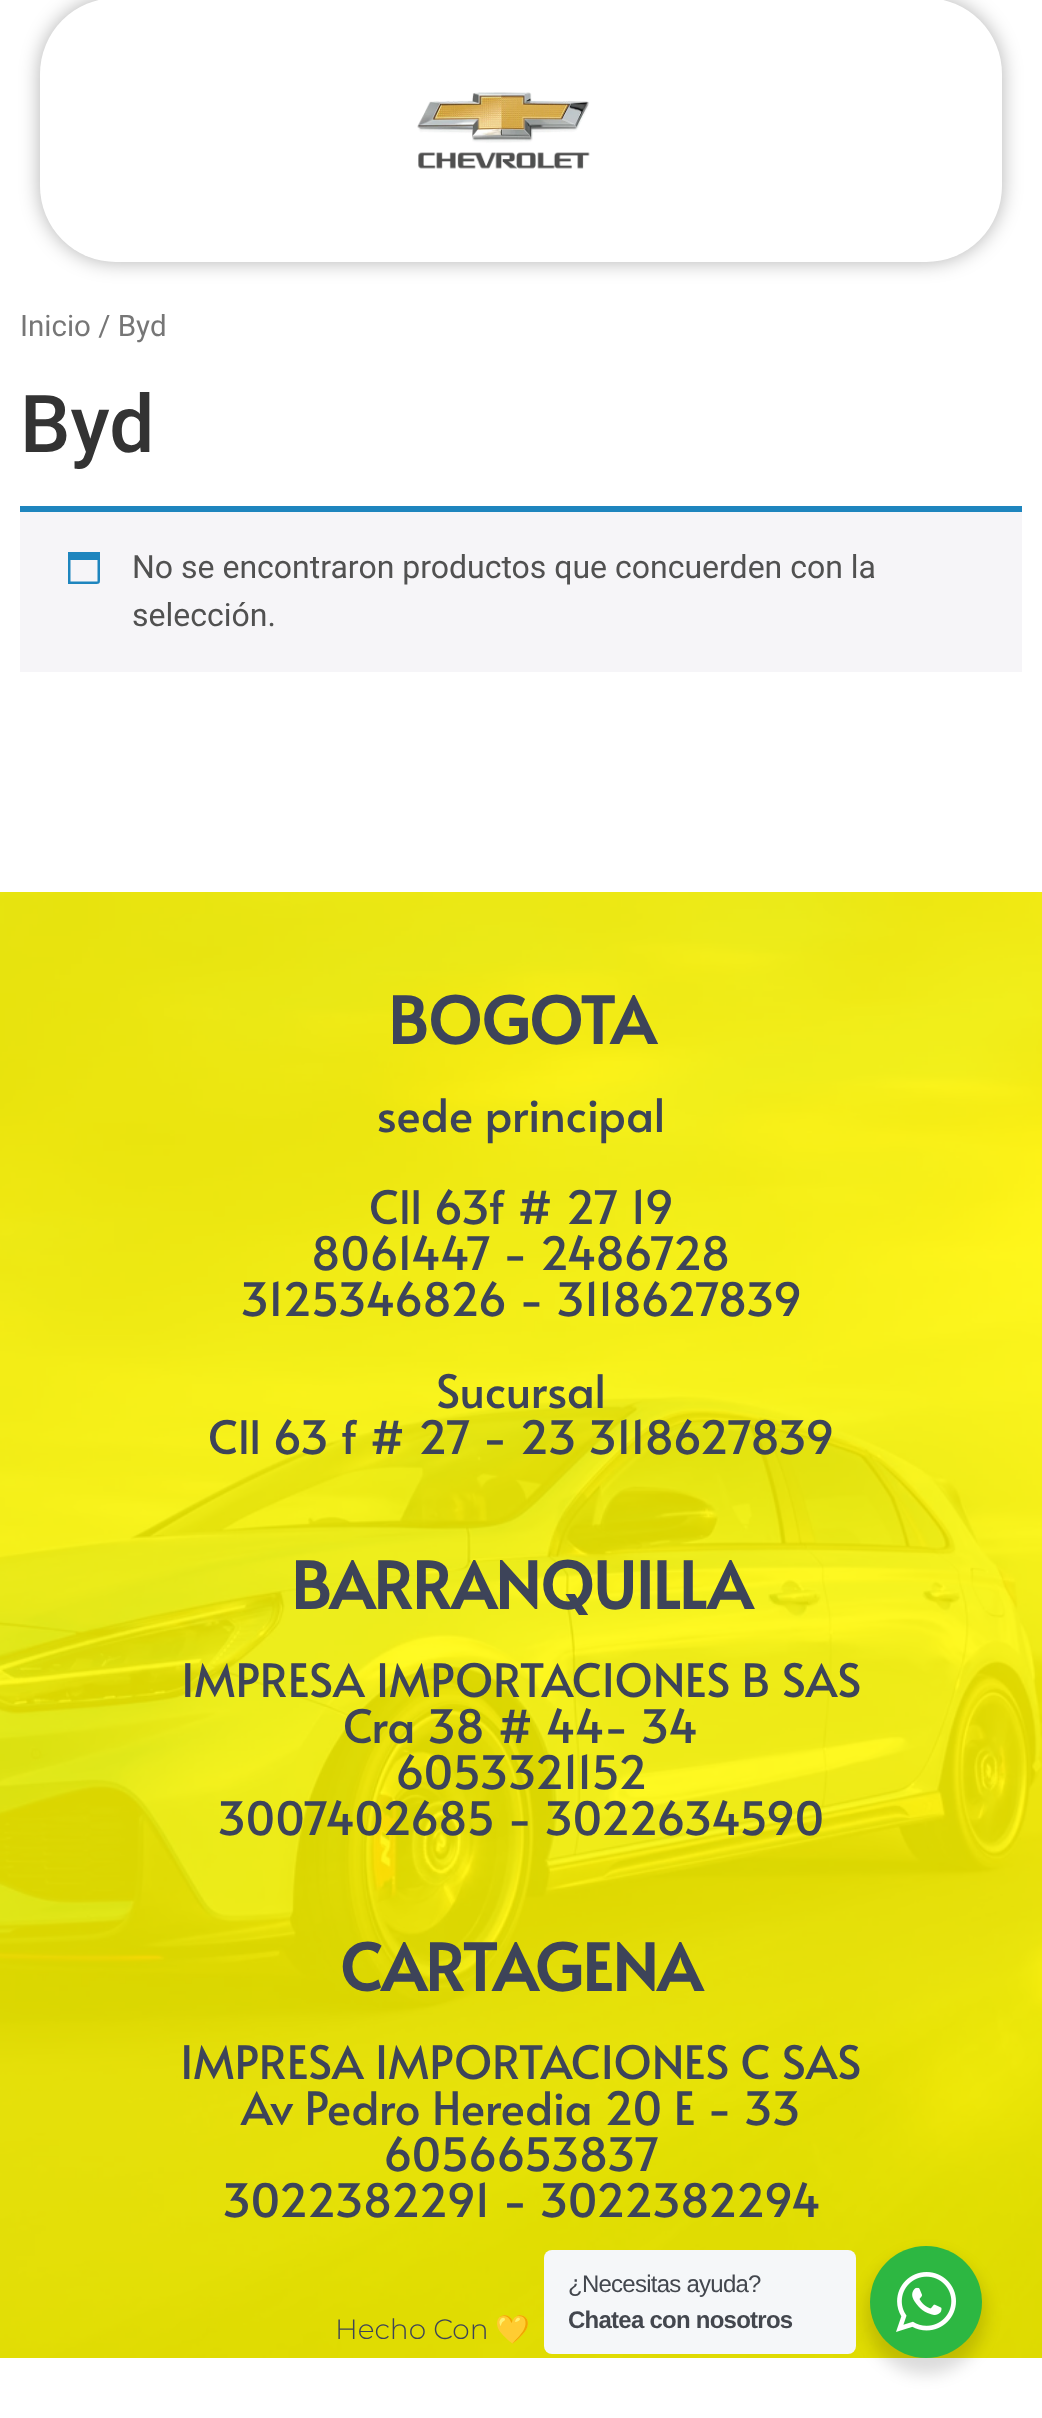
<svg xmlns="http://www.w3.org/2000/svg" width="1042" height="2418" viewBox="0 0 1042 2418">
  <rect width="100%" height="100%" fill="#fff"/>
  <rect x="40" y="-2" width="962" height="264" rx="76" fill="#0000004d" filter="blur(10px)"/>
  <rect x="40" y="-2" width="962" height="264" rx="76" fill="#fff"/>
  <image x="417" y="92" width="173" height="77" href="img/1.png"/>
  <path d="M20 512h1002v160H20z" fill="#f6f5f8"/>
  <path d="M20 506h1002v6H20z" fill="#1e85be"/>
  <path d="M97.5 560H70.5V581.5H97.5ZM100 552V576.5C100 584.5 100.5 584 92.5 584H68V552Z" fill="#1e85be"/>
  <image x="0" y="892" width="1042" height="1466" href="img/2.png"/>
  <rect x="866" y="2254" width="120" height="120" rx="60" fill="#00000024" filter="blur(8px)"/>
  <rect x="544" y="2250" width="312" height="104" rx="8" fill="#f5f7f9"/>
  <circle cx="926" cy="2302" r="56" fill="#2db742"/>
  <image x="896" y="2272" width="60" height="60" href="img/3.png"/>
  <text x="20" y="336" font-family="Roboto" font-size="29.5" fill="#767676">Inicio / Byd</text>
  <text x="20" y="452" font-family="Roboto" font-size="80" font-weight="500" fill="#333">Byd</text>
  <g font-family="Roboto" font-size="32" fill="#515151">
    <text x="132" y="578">No se encontraron productos que concuerden con la</text>
    <text x="132" y="626">selección.</text>
  </g>
  <text x="388" y="1044" font-family="Alata" font-size="64" font-weight="bold" fill="#3d4459">BOGOTA</text>
  <g font-family="Alata" font-size="46" fill="#3d4459">
    <text x="376" y="1132">sede principal</text>
    <text x="369" y="1224">Cll 63f # 27 19</text>
    <text x="311" y="1270">8061447 - 2486728</text>
    <text x="240" y="1316">3125346826 - 3118627839</text>
    <text x="436" y="1408">Sucursal</text>
    <text x="208" y="1454">Cll 63 f # 27 - 23 3118627839</text>
  </g>
  <text x="291" y="1609" font-family="Alata" font-size="64" font-weight="bold" fill="#3d4459">BARRANQUILLA</text>
  <g font-family="Alata" font-size="46" fill="#3d4459">
    <text x="181" y="1697">IMPRESA IMPORTACIONES B SAS</text>
    <text x="343" y="1743">Cra 38 # 44- 34</text>
    <text x="395" y="1789">6053321152</text>
    <text x="217" y="1835">3007402685 - 3022634590</text>
  </g>
  <text x="340" y="1991" font-family="Alata" font-size="64" font-weight="bold" fill="#3d4459">CARTAGENA</text>
  <g font-family="Alata" font-size="46" fill="#3d4459">
    <text x="180" y="2079">IMPRESA IMPORTACIONES C SAS</text>
    <text x="241" y="2125">Av Pedro Heredia 20 E - 33</text>
    <text x="383" y="2171">6056653837</text>
    <text x="222" y="2217">3022382291 - 3022382294</text>
  </g>
  <text x="335" y="2339" font-family="Montserrat" font-size="28" font-weight="300" fill="#3d4459">Hecho Con</text>
  <text x="495" y="2339" font-family="Noto Color Emoji" font-size="28" fill="#3d4459">💛</text>
  <text x="568" y="2292" font-family="Liberation Sans" font-size="24" letter-spacing="-0.75" fill="#43474e">¿Necesitas ayuda?</text>
  <text x="568" y="2328" font-family="Liberation Sans" font-size="24" font-weight="bold" letter-spacing="-0.75" fill="#43474e">Chatea con nosotros</text>
</svg>
